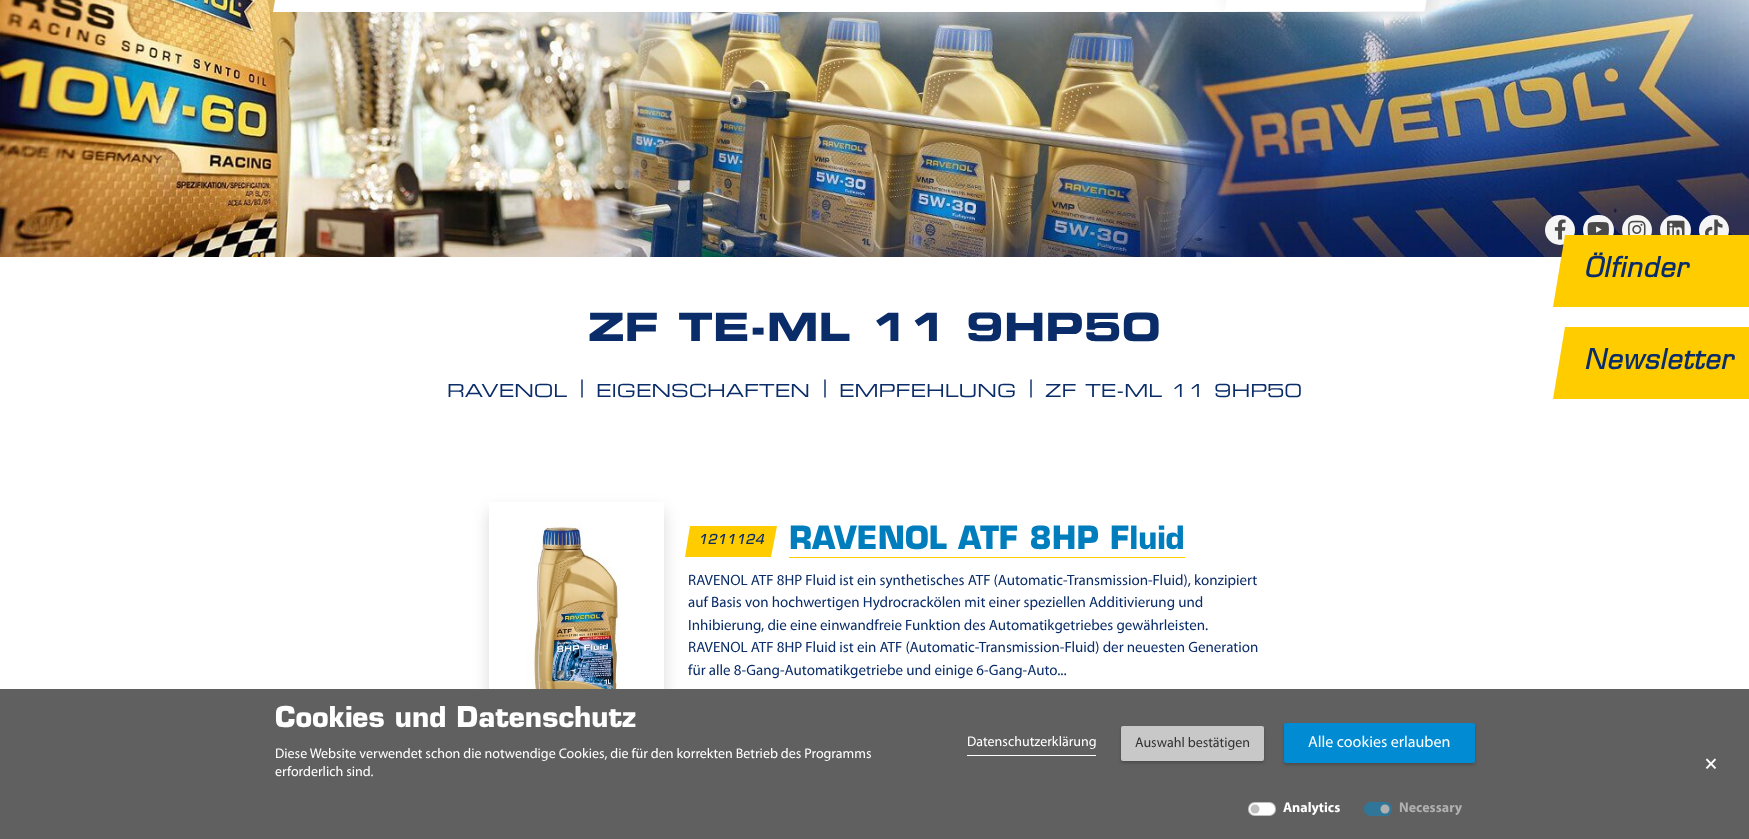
<svg xmlns="http://www.w3.org/2000/svg" width="1749" height="839" viewBox="0 0 1749 839">
  <defs>
    <clipPath id="clip1"><path d="M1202 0H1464V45H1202ZM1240.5-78.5H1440.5L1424.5 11.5H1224.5Z" clip-rule="evenodd"/></clipPath>
    <clipPath id="clip2"><path d="M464 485H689V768H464ZM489 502H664V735H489Z" clip-rule="evenodd"/></clipPath>
  </defs>
  <rect width="100%" height="100%" fill="#fff"/>
  <image x="0" y="0" width="1749" height="257" href="img/1.png"/>
  <circle cx="1560" cy="230" r="15" fill="#f5f5f5"/>
  <image x="1554" y="219" width="12" height="21" href="img/2.png"/>
  <rect x="1583" y="215" width="31" height="30" rx="15" fill="#f5f5f5"/>
  <image x="1587" y="222" width="22" height="13" href="img/3.png"/>
  <circle cx="1637" cy="230" r="15" fill="#f5f5f5"/>
  <image x="1628" y="220" width="18" height="15" href="img/4.png"/>
  <rect x="1660" y="215" width="31" height="30" rx="15" fill="#f5f5f5"/>
  <image x="1667" y="220" width="18" height="15" href="img/5.png"/>
  <circle cx="1714" cy="230" r="15" fill="#f5f5f5"/>
  <image x="1705" y="219" width="18" height="16" href="img/6.png"/>
  <path d="M288-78H1440L1425 12H273Z" fill="#fff"/>
  <g clip-path="url(#clip1)">
    <path d="M1233 -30h200v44H1233z" fill="#00000026" filter="blur(10px)"/>
  </g>
  <path d="M1565 235H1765L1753 307H1553Z" fill="#fc0"/>
  <path d="M1565 327H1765L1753 399H1553Z" fill="#fc0"/>
  <g clip-path="url(#clip2)">
    <path d="M489 510h175v233H489z" fill="#00000026" filter="blur(8px)"/>
  </g>
  <image x="526" y="522" width="94" height="167" href="img/7.png"/>
  <path d="M690 526H777L771 557H685Z" fill="#fc0"/>
  <path d="M789 557h396v1H789z" fill="#fc0"/>
  <path d="M0 689h1749v150H0z" fill="#606060"/>
  <path d="M967 755h129v1H967z" fill="#fff"/>
  <rect x="1121" y="728" width="143" height="35" rx="2" fill="#00000033" filter="blur(1.5px)"/>
  <rect x="1121" y="726" width="143" height="35" rx="2" fill="#c8c8c8"/>
  <rect x="1284" y="725" width="191" height="40" rx="2" fill="#00000033" filter="blur(1.5px)"/>
  <rect x="1284" y="723" width="191" height="40" rx="2" fill="#008bd2"/>
  <rect x="1248" y="802" width="28" height="14" rx="7" fill="#fff"/>
  <circle cx="1255" cy="809" r="4.5" fill="#bfbfbf"/>
  <rect x="1248.5" y="802.5" width="27" height="13" rx="6.5" fill="none" stroke="#00000040"/>
  <rect x="1364" y="802" width="28" height="14" rx="7" fill="#307699"/>
  <circle cx="1385" cy="809" r="4.5" fill="#b0b0b0"/>
  <rect x="1364.5" y="802.5" width="27" height="13" rx="6.5" fill="none" stroke="#307699"/>
  <g font-family="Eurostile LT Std" font-size="27" font-weight="bold" font-style="italic" letter-spacing="1" fill="#0a2c68">
    <text x="1584" y="277">Ölfinder</text>
    <text x="1584" y="369">Newsletter</text>
  </g>
  <text x="588" y="341" font-family="Eurostile LT Std" font-size="38.9" font-weight="bold" fill="#0a2c68">ZF TE-ML 11 9HP50</text>
  <g font-family="Eurostile LT Std" font-size="18" fill="#0a2c68">
    <text x="447" y="397">RAVENOL</text>
    <text x="580" y="393">|</text>
    <text x="596" y="397">EIGENSCHAFTEN</text>
    <text x="823" y="393">|</text>
    <text x="839" y="397">EMPFEHLUNG</text>
    <text x="1029" y="393">|</text>
    <text x="1045" y="397">ZF TE-ML 11 9HP50</text>
  </g>
  <text x="698" y="544" font-family="Eurostile LT Std" font-size="13" font-weight="bold" font-style="italic" letter-spacing="0.5" fill="#0a2c68">1211124</text>
  <text x="789" y="549" font-family="'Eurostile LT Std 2'" font-size="31.25" font-weight="bold" fill="#007dbc">RAVENOL ATF 8HP Fluid</text>
  <g font-family="Myriad" font-size="15" fill="#0a2c68">
    <text x="688" y="585">RAVENOL ATF 8HP Fluid ist ein synthetisches ATF (Automatic-Transmission-Fluid), konzipiert</text>
    <text x="688" y="607">auf Basis von hochwertigen Hydrocrackölen mit einer speziellen Additivierung und</text>
    <text x="688" y="630">Inhibierung, die eine einwandfreie Funktion des Automatikgetriebes gewährleisten.</text>
    <text x="688" y="652">RAVENOL ATF 8HP Fluid ist ein ATF (Automatic-Transmission-Fluid) der neuesten Generation</text>
    <text x="688" y="675">für alle 8-Gang-Automatikgetriebe und einige 6-Gang-Auto...</text>
  </g>
  <text x="275" y="727" font-family="'Eurostile LT Std 2'" font-size="28" font-weight="bold" fill="#fff">Cookies und Datenschutz</text>
  <g font-family="Myriad" font-size="14" fill="#fff">
    <text x="275" y="758">Diese Website verwendet schon die notwendige Cookies, die für den korrekten Betrieb des Programms</text>
    <text x="275" y="776">erforderlich sind.</text>
    <text x="967" y="746">Datenschutzerklärung</text>
  </g>
  <text x="1135" y="747" font-family="Myriad" font-size="14" fill="#333">Auswahl bestätigen</text>
  <text x="1308" y="747" font-family="Myriad" font-size="16" fill="#fff">Alle cookies erlauben</text>
  <text x="1705" y="769" font-family="Myriad" font-size="20" font-weight="bold" fill="#fff">×</text>
  <text x="1283" y="812" font-family="Myriad" font-size="14" font-weight="bold" fill="#fff">Analytics</text>
  <text x="1399" y="812" font-family="Myriad" font-size="14" font-weight="bold" fill="#b0b0b0">Necessary</text>
</svg>
